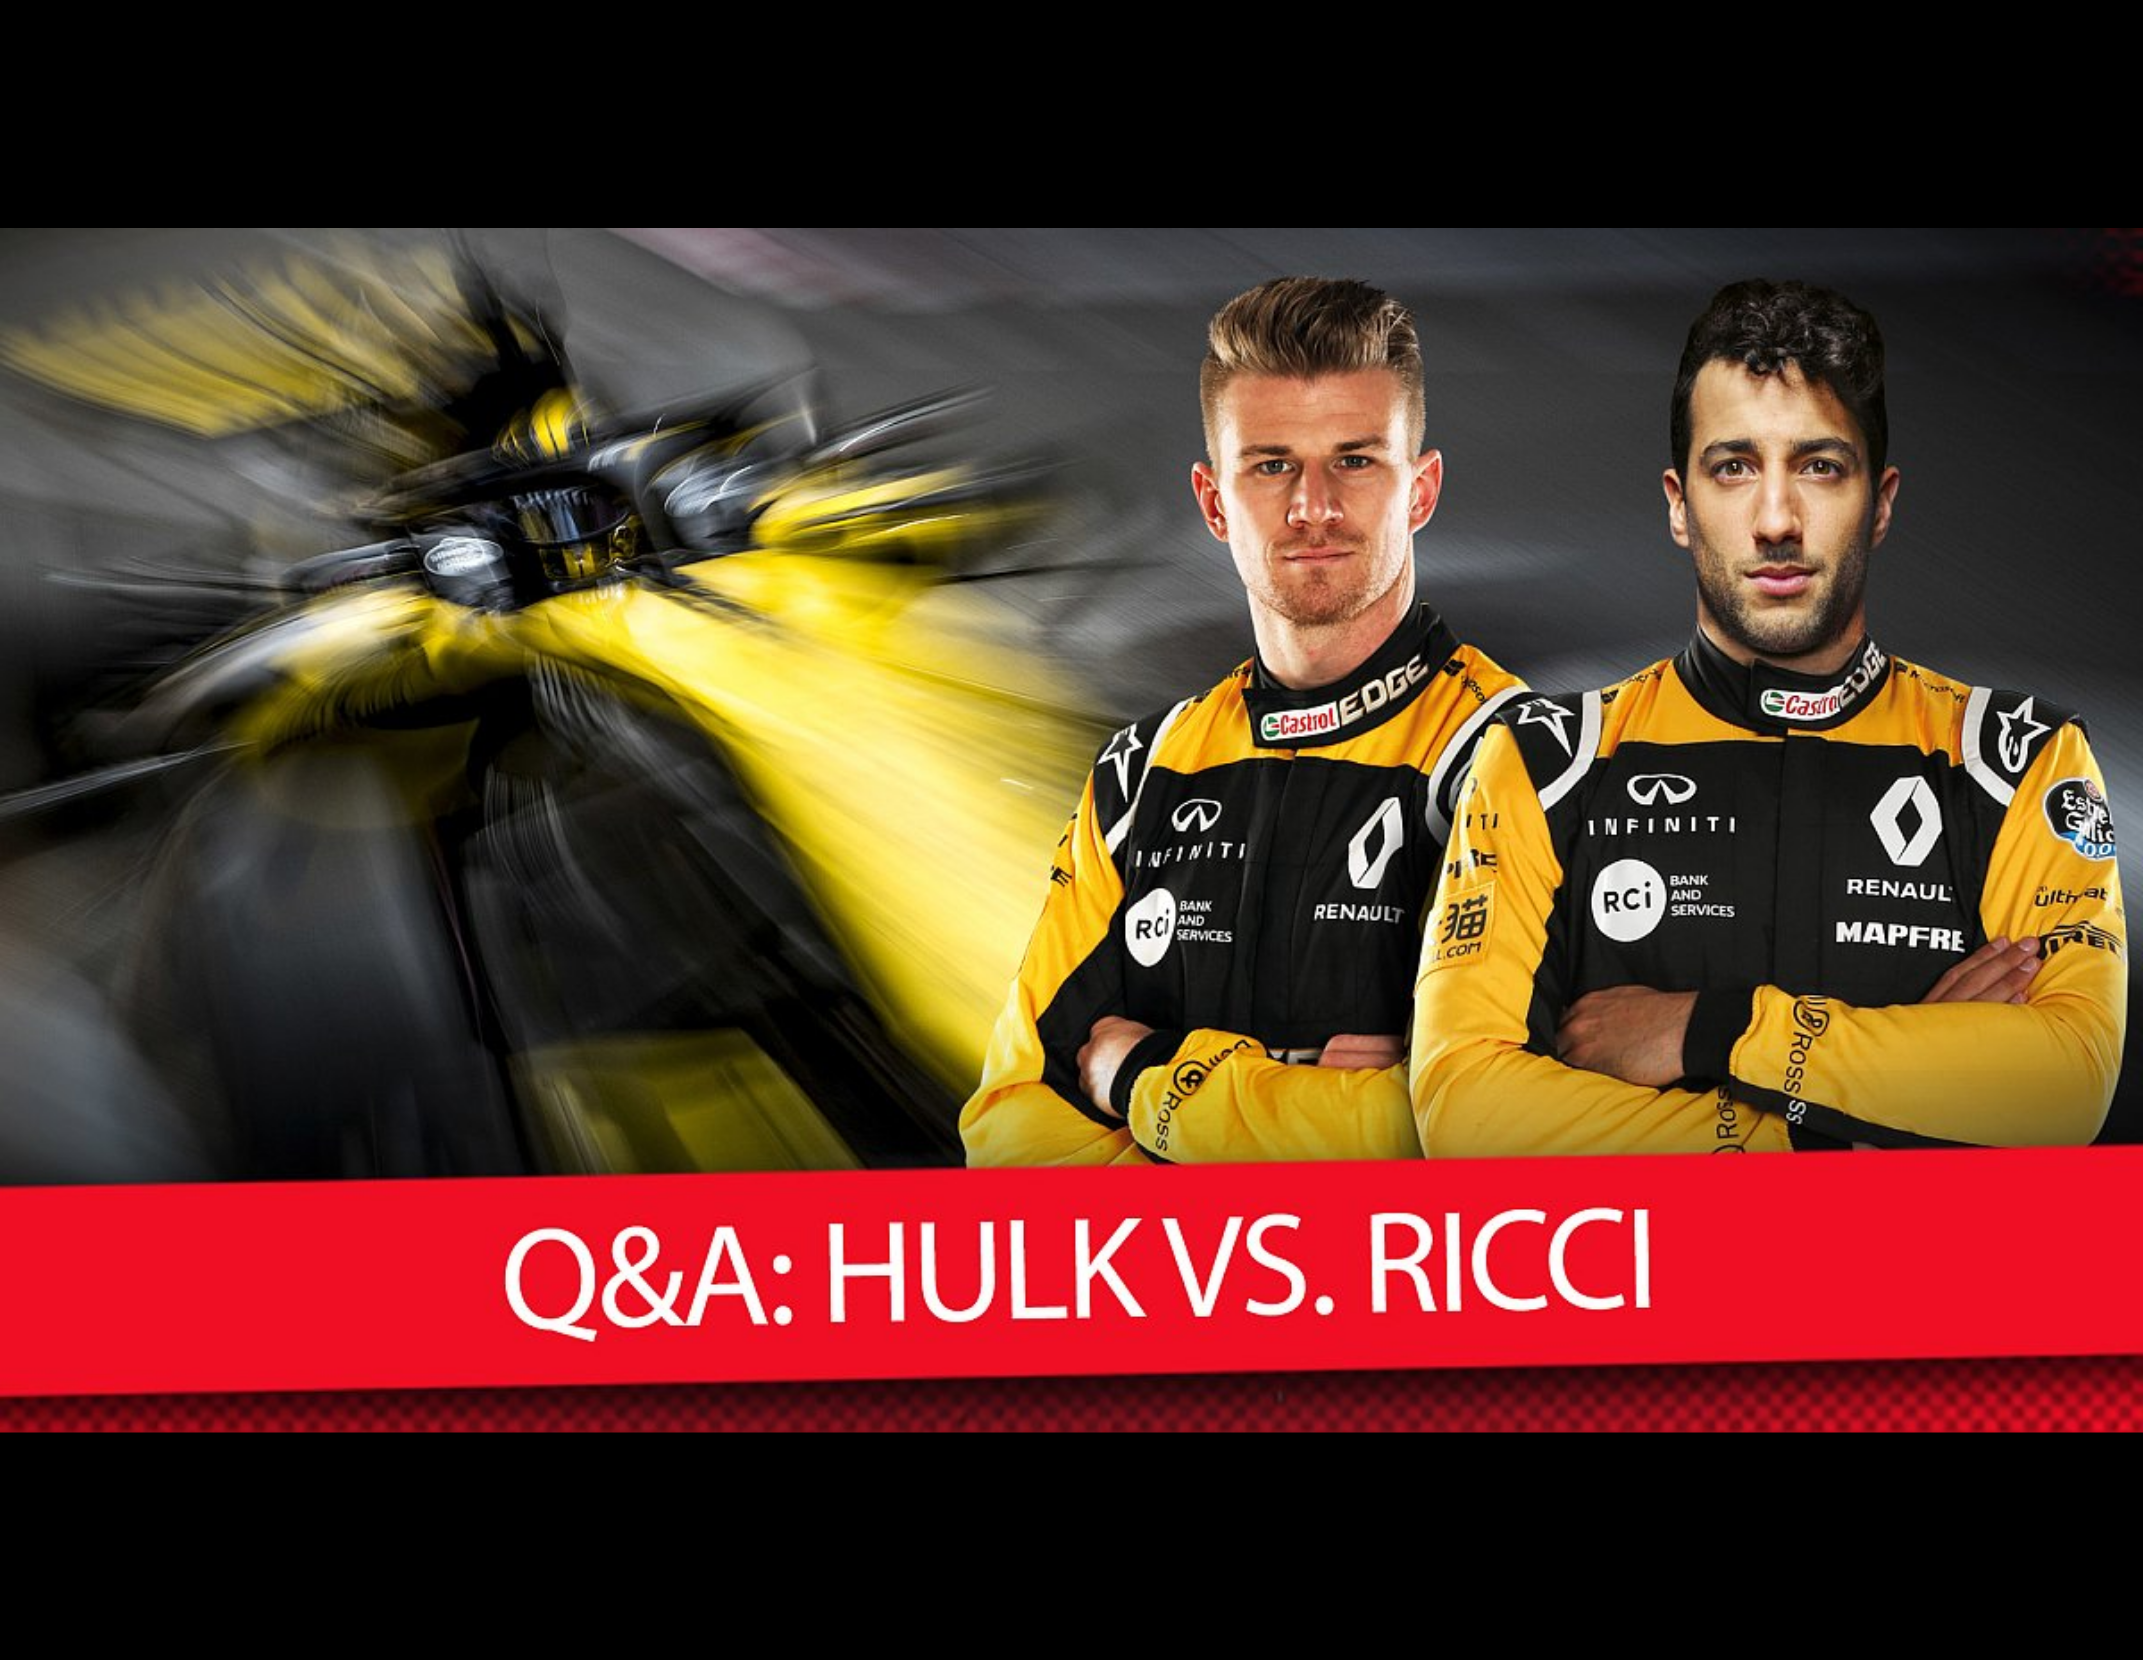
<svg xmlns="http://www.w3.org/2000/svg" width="2143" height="1660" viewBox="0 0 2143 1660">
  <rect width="100%" height="100%" fill="#000"/>
  <image x="0" y="228" width="2143" height="1205" href="img/1.png"/>
</svg>
